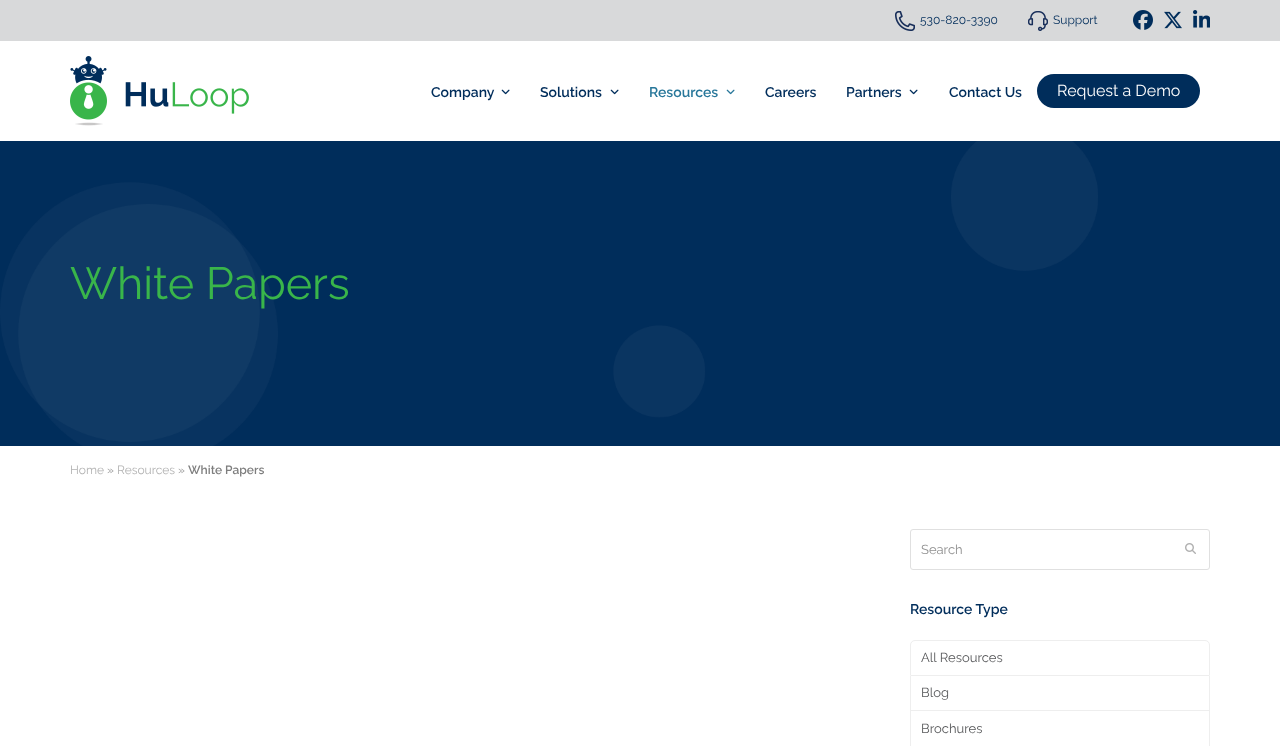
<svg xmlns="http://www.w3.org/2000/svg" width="1280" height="746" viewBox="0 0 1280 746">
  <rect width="100%" height="100%" fill="#fff"/>
  <path d="M0 0h1280v41H0z" fill="#d8d9da"/>
  <image x="895" y="11" width="20" height="20" href="img/1.png"/>
  <image x="1028" y="11" width="20" height="20" href="img/2.png"/>
  <image x="1133" y="10" width="20" height="20" href="img/3.png"/>
  <image x="1164" y="11" width="18" height="18" href="img/4.png"/>
  <image x="1193" y="10" width="17" height="18" href="img/5.png"/>
  <image x="70" y="56" width="179" height="70" href="img/6.png"/>
  <image x="501" y="89" width="9" height="6" href="img/7.png"/>
  <image x="610" y="89" width="9" height="6" href="img/7.png"/>
  <image x="726" y="89" width="9" height="6" href="img/8.png"/>
  <image x="909" y="89" width="9" height="6" href="img/7.png"/>
  <rect x="1037" y="74" width="163" height="34" rx="17" fill="#002d5b"/>
  <path d="M0 141h1280v305H0z" fill="#002d5b"/>
  <image x="0" y="141" width="1098" height="305" href="img/9.png"/>
  <rect x="910.5" y="529.5" width="299" height="40" rx="2.5" fill="none" stroke="#e0e0e0"/>
  <image x="1185" y="543" width="11" height="11" href="img/10.png"/>
  <path d="M915 640.5H1205C1207.5 640.5 1209.5 642.5 1209.5 645V675.5H910.5V645C910.5 642.5 912.5 640.5 915 640.5Z" fill="none" stroke="#eee"/>
  <path d="M1209 676h1v70H1209z" fill="#eee"/>
  <path d="M910 710h300v1H910z" fill="#eee"/>
  <path d="M910 676h1v70H910z" fill="#eee"/>
  <g font-family="Raleway" font-size="12" fill="#002d5b">
    <text x="920" y="24">530-820-3390</text>
    <text x="1053" y="24">Support</text>
  </g>
  <g font-family="Raleway" font-size="14" font-weight="600" fill="#002d5b">
    <text x="431" y="97">Company</text>
    <text x="540" y="97">Solutions</text>
  </g>
  <text x="649" y="97" font-family="Raleway" font-size="14" font-weight="600" fill="#28779a">Resources</text>
  <g font-family="Raleway" font-size="14" font-weight="600" fill="#002d5b">
    <text x="765" y="97">Careers</text>
    <text x="846" y="97">Partners</text>
    <text x="949" y="97">Contact Us</text>
  </g>
  <text x="1057" y="96" font-family="Raleway" font-size="16" fill="#fff">Request a Demo</text>
  <text x="70" y="299" font-family="Raleway" font-size="45" fill="#39b54a">White Papers</text>
  <text x="70" y="474" font-family="Raleway" font-size="12" fill="#b2b2b2">Home</text>
  <text x="107" y="474" font-family="Raleway" font-size="12" fill="#969696">»</text>
  <text x="117" y="474" font-family="Raleway" font-size="12" fill="#b2b2b2">Resources</text>
  <text x="178" y="474" font-family="Raleway" font-size="12" fill="#969696">»</text>
  <text x="188" y="474" font-family="Raleway" font-size="12" font-weight="600" fill="#7e7e7e">White Papers</text>
  <text x="921" y="554" font-family="Raleway" font-size="13" fill="#909090">Search</text>
  <text x="910" y="614" font-family="Raleway" font-size="14" font-weight="600" fill="#002d5b">Resource Type</text>
  <g font-family="Raleway" font-size="13" fill="#58595b">
    <text x="921" y="662">All Resources</text>
    <text x="921" y="697">Blog</text>
    <text x="921" y="733">Brochures</text>
  </g>
</svg>
